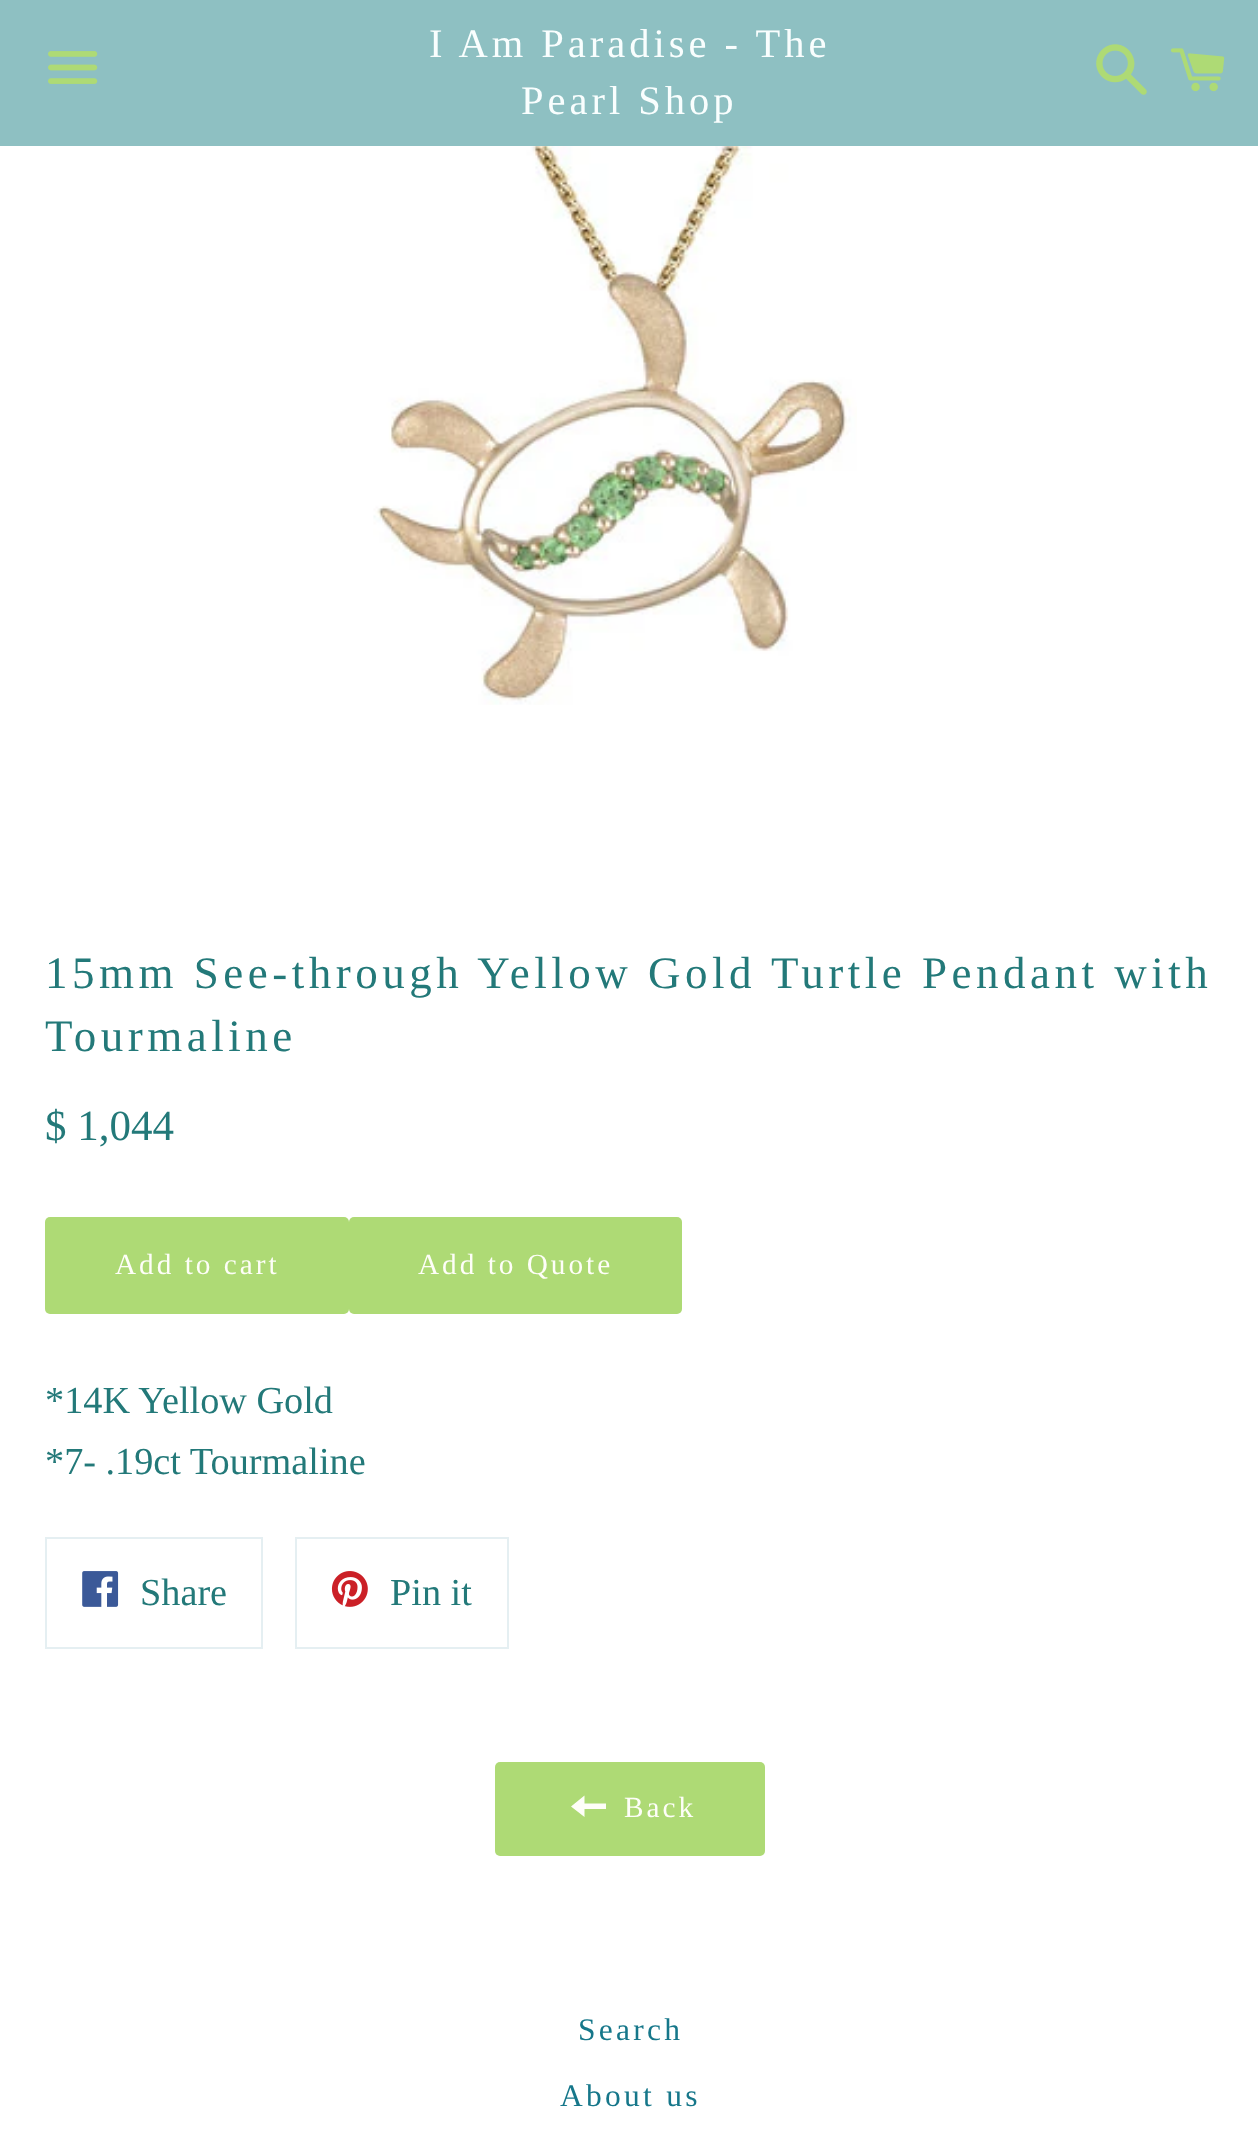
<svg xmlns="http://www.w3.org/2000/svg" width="1258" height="2137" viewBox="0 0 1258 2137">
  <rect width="100%" height="100%" fill="#fff"/>
  <path d="M0 0h1258v146H0z" fill="#8ec0c2"/>
  <image x="48" y="51" width="50" height="33" href="img/1.png"/>
  <image x="1096" y="44" width="51" height="51" href="img/2.png"/>
  <image x="1171" y="48" width="54" height="44" href="img/3.png"/>
  <image x="373" y="146" width="484" height="559" href="img/4.png"/>
  <rect x="45" y="1217" width="304" height="97" rx="5" fill="#aeda75"/>
  <rect x="349" y="1217" width="333" height="97" rx="5" fill="#aeda75"/>
  <path d="M46 1538h216v110H46z" fill="none" stroke="#e5eff2" stroke-width="2"/>
  <image x="82" y="1571" width="37" height="36" href="img/5.png"/>
  <path d="M296 1538h212v110H296z" fill="none" stroke="#e5eff2" stroke-width="2"/>
  <image x="331" y="1571" width="37" height="36" href="img/6.png"/>
  <rect x="495" y="1762" width="270" height="94" rx="5" fill="#aeda75"/>
  <path d="M584.5 1803.5V1795.5L571 1806.5L584.5 1817V1809H606V1803.5Z" fill="#fefef8"/>
  <g font-family="Liberation Serif" font-size="40.5" letter-spacing="4" fill="#f9fefe">
    <text x="429" y="57">I Am Paradise - The</text>
    <text x="521" y="114">Pearl Shop</text>
  </g>
  <g font-family="Liberation Serif" font-size="45" letter-spacing="4.5" fill="#237979">
    <text x="45" y="988">15mm See-through Yellow Gold Turtle Pendant with</text>
    <text x="45" y="1051">Tourmaline</text>
  </g>
  <text x="45" y="1140" font-family="Liberation Serif" font-size="43" fill="#237979">$ 1,044</text>
  <g font-family="Liberation Serif" font-size="29.25" letter-spacing="3" fill="#fefef8">
    <text x="115" y="1274">Add to cart</text>
    <text x="418" y="1274">Add to Quote</text>
  </g>
  <g font-family="Liberation Serif" font-size="38.25" fill="#237979">
    <text x="45" y="1413">*14K Yellow Gold</text>
    <text x="45" y="1474">*7- .19ct Tourmaline</text>
    <text x="140" y="1605">Share</text>
    <text x="390" y="1605">Pin it</text>
  </g>
  <text x="624" y="1817" font-family="Liberation Serif" font-size="29.25" letter-spacing="3" fill="#fefef8">Back</text>
  <g font-family="Liberation Serif" font-size="31.5" letter-spacing="3.25" fill="#16778a">
    <text x="578" y="2040">Search</text>
    <text x="560" y="2106">About us</text>
  </g>
</svg>
